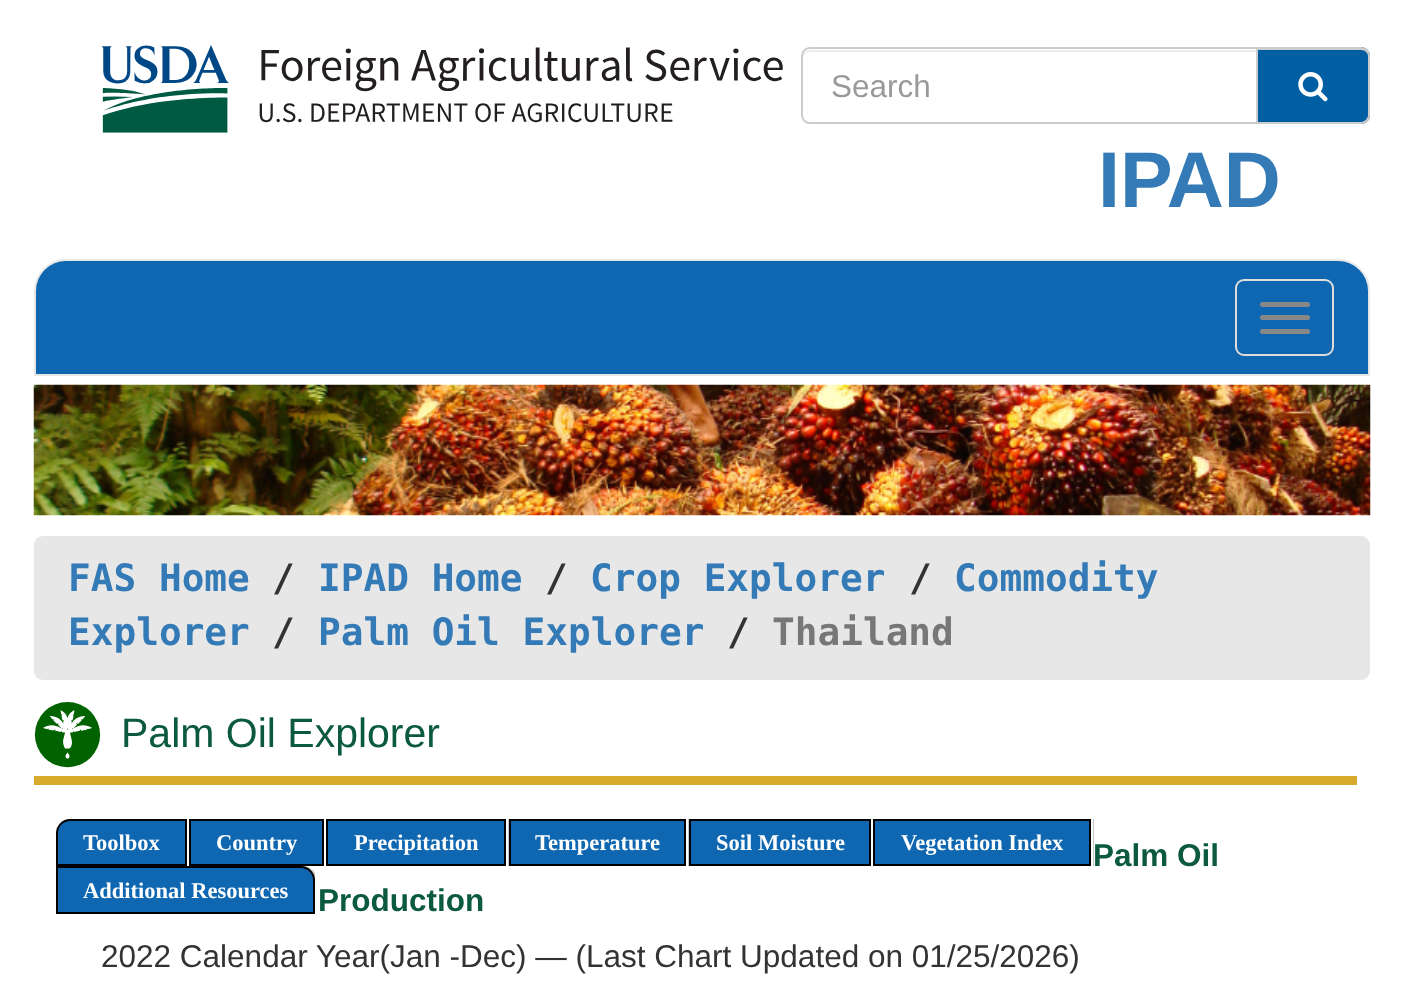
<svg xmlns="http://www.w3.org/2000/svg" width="1402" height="981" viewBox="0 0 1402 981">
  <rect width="100%" height="100%" fill="#fff"/>
  <image x="101" y="45" width="682" height="88" href="img/1.png"/>
  <path d="M810 52H1256V50H810C806 50 803 53 803 57V58C803 55 806 52 810 52Z" fill="#ececec"/>
  <path d="M810 48H1257V123H810C805.5 123 802 119.5 802 115V56C802 51.5 805.5 48 810 48Z" fill="none" stroke="#ccc" stroke-width="2"/>
  <path d="M1258 47H1361C1366 47 1370 51 1370 56V115C1370 120 1366 124 1361 124H1258Z" fill="#005ea2"/>
  <path d="M1258 47H1361C1366 47 1370 51 1370 56V115C1370 120 1366 124 1361 124H1258ZM1258 50H1361C1365 50 1368 53 1368 56V115C1368 118 1365 122 1361 122H1258Z" fill="#ccc" fill-rule="evenodd"/>
  <image x="1298" y="72" width="30" height="30" href="img/2.png"/>
  <path d="M66 260H1338C1355 260 1369 274 1369 291V375H35V291C35 274 49 260 66 260Z" fill="#0e67b0" stroke="#e7e7e7" stroke-width="2"/>
  <rect x="1236" y="280" width="97" height="75" rx="8" fill="none" stroke="#ddd" stroke-width="2"/>
  <rect x="1260" y="302" width="50" height="5" rx="2.5" fill="#888"/>
  <rect x="1260" y="315" width="50" height="5" rx="2.5" fill="#888"/>
  <rect x="1260" y="329" width="50" height="5" rx="2.5" fill="#888"/>
  <image x="33" y="384" width="1338" height="132" href="img/3.png"/>
  <rect x="34" y="536" width="1336" height="144" rx="9" fill="#e7e7e7"/>
  <path d="M34 776h1323v9H34z" fill="#d8ab2d"/>
  <image x="34" y="702" width="67" height="66" href="img/4.png"/>
  <path d="M70 820H186V865H57V833C57 826 63 820 70 820Z" fill="#0e67b0" stroke="#000" stroke-width="2"/>
  <path d="M190 820h133v45H190z" fill="#0e67b0" stroke="#000" stroke-width="2"/>
  <path d="M508 819h1v47H508z" fill="#c8c8c8"/>
  <path d="M327 820h178v45H327z" fill="#0e67b0" stroke="#000" stroke-width="2"/>
  <path d="M688 819h1v47H688z" fill="#c8c8c8"/>
  <path d="M510 820h175v45H510z" fill="#0e67b0" stroke="#000" stroke-width="2"/>
  <path d="M690 820h180v45H690z" fill="#0e67b0" stroke="#000" stroke-width="2"/>
  <path d="M1093 819h1v47H1093z" fill="#c8c8c8"/>
  <path d="M874 820h216v45H874z" fill="#0e67b0" stroke="#000" stroke-width="2"/>
  <path d="M56 866H303C310.5 866 317 872.5 317 880V914H56Z" fill="#c8c8c8"/>
  <path d="M315 873h2v41H315z" fill="#fff"/>
  <path d="M57 867H301C308 867 314 873 314 880V913H57Z" fill="#0e67b0" stroke="#000" stroke-width="2"/>
  <text x="831" y="97" font-family="Liberation Sans" font-size="31.5" fill="#999">Search</text>
  <text x="1098" y="207" font-family="Liberation Sans" font-size="79" font-weight="bold" fill="#337ab7">IPAD</text>
  <text x="68" y="591" font-family="DejaVu Sans Mono" font-size="37.75" font-weight="bold" fill="#337ab7">FAS Home</text>
  <text x="272" y="591" font-family="DejaVu Sans Mono" font-size="37.75" font-weight="bold" fill="#333">/</text>
  <text x="318" y="591" font-family="DejaVu Sans Mono" font-size="37.75" font-weight="bold" fill="#337ab7">IPAD Home</text>
  <text x="545" y="591" font-family="DejaVu Sans Mono" font-size="37.75" font-weight="bold" fill="#333">/</text>
  <text x="590" y="591" font-family="DejaVu Sans Mono" font-size="37.75" font-weight="bold" fill="#337ab7">Crop Explorer</text>
  <text x="909" y="591" font-family="DejaVu Sans Mono" font-size="37.75" font-weight="bold" fill="#333">/</text>
  <g font-family="DejaVu Sans Mono" font-size="37.75" font-weight="bold" fill="#337ab7">
    <text x="954" y="591">Commodity</text>
    <text x="68" y="645">Explorer</text>
  </g>
  <text x="272" y="645" font-family="DejaVu Sans Mono" font-size="37.75" font-weight="bold" fill="#333">/</text>
  <text x="318" y="645" font-family="DejaVu Sans Mono" font-size="37.75" font-weight="bold" fill="#337ab7">Palm Oil Explorer</text>
  <text x="727" y="645" font-family="DejaVu Sans Mono" font-size="37.75" font-weight="bold" fill="#333">/</text>
  <text x="772" y="645" font-family="DejaVu Sans Mono" font-size="37.75" font-weight="bold" fill="#777">Thailand</text>
  <text x="121" y="747" font-family="Liberation Sans" font-size="41" fill="#0b5941">Palm Oil Explorer</text>
  <g font-family="Liberation Serif" font-size="22.5" font-weight="bold" fill="#fff">
    <text x="83" y="850">Toolbox</text>
    <text x="216" y="850">Country</text>
    <text x="354" y="850">Precipitation</text>
    <text x="535" y="850">Temperature</text>
    <text x="716" y="850">Soil Moisture</text>
    <text x="901" y="850">Vegetation Index</text>
    <text x="83" y="898">Additional Resources</text>
  </g>
  <g font-family="Liberation Sans" font-size="31.5" font-weight="bold" fill="#0b5941">
    <text x="1093" y="866">Palm Oil</text>
    <text x="318" y="911">Production</text>
  </g>
  <text x="101" y="967" font-family="Liberation Sans" font-size="31.5" fill="#333">2022 Calendar Year(Jan -Dec) — (Last Chart Updated on 01/25/2026)</text>
</svg>
